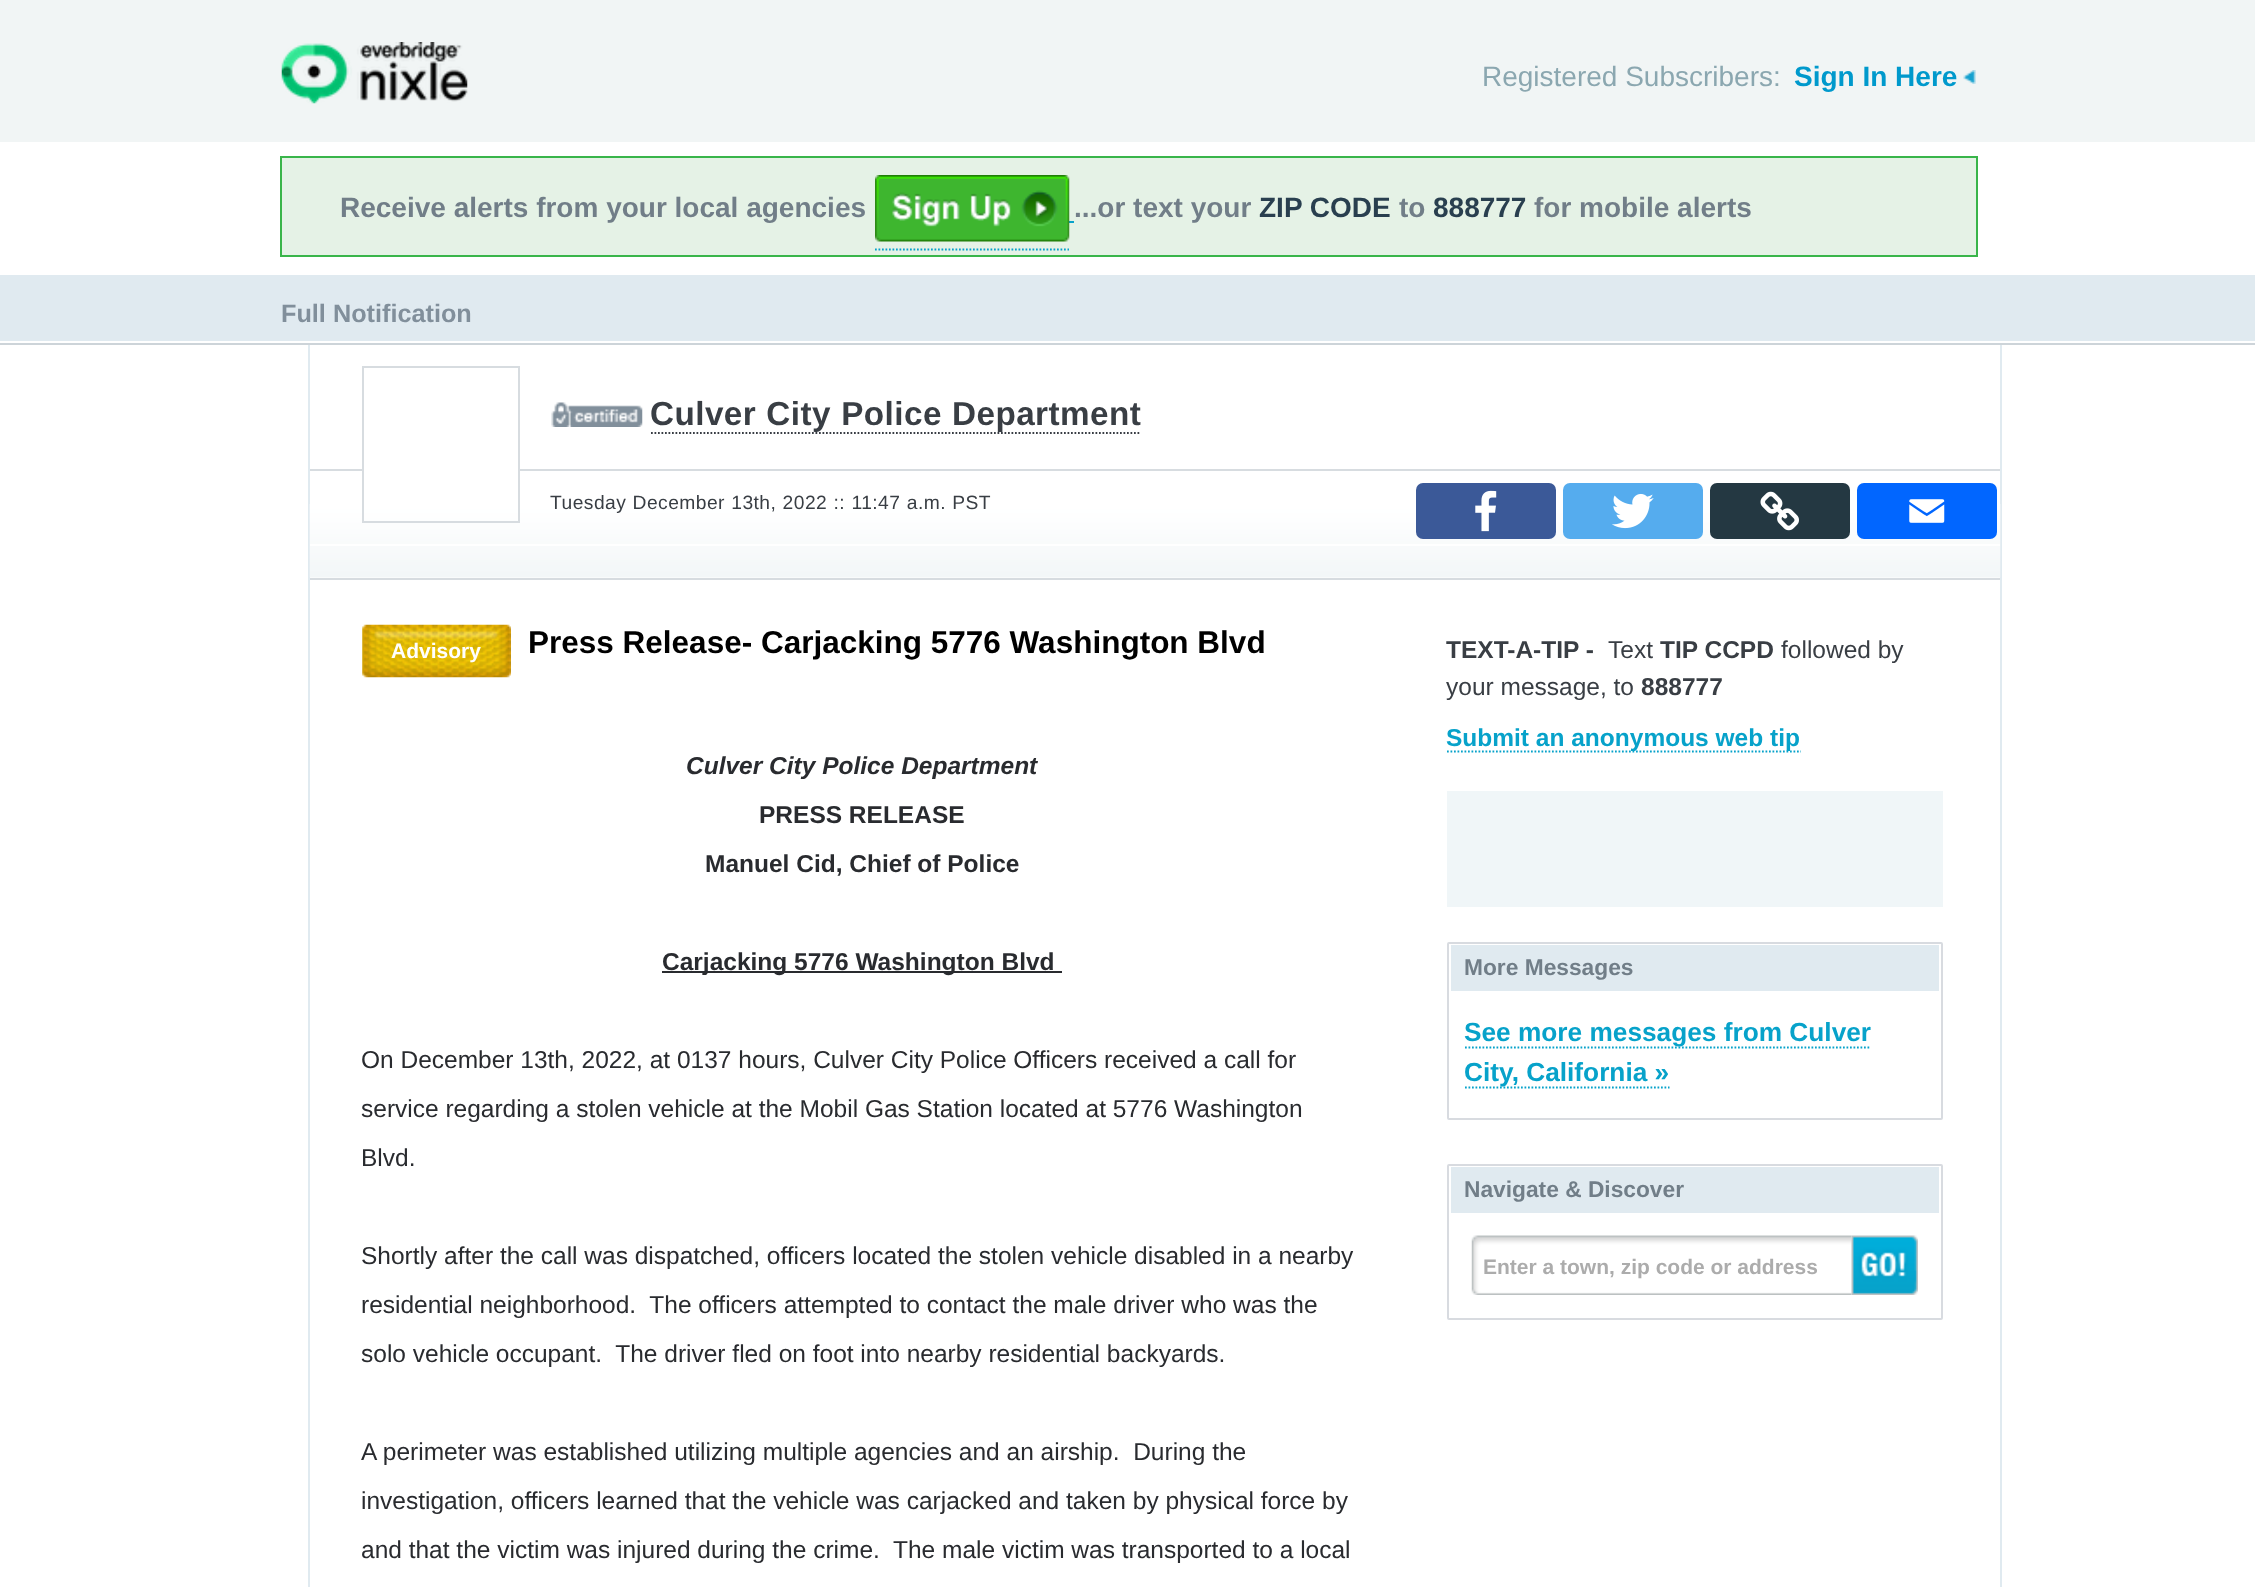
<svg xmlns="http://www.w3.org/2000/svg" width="2255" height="1587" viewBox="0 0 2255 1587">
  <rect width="100%" height="100%" fill="#f1f5f5"/>
  <image x="281" y="42" width="187" height="62" href="img/1.png"/>
  <image x="1963" y="70" width="13" height="14" href="img/2.png"/>
  <path d="M0 142h2255v133H0z" fill="#fff"/>
  <path d="M281 157h1696v99H281z" fill="#e5f2e6" stroke="#39b54a" stroke-width="2"/>
  <path d="M875 249.5H1069" fill="none" stroke="#07a2ca" stroke-width="1.8" stroke-dasharray="1.75 1.75"/>
  <path d="M1069 221h5v2H1069z" fill="#07a2ca"/>
  <image x="875" y="175" width="195" height="67" href="img/3.png"/>
  <path d="M0 275h2255v66H0z" fill="#e0eaf0"/>
  <path d="M0 341h2255v2H0z" fill="#fff"/>
  <path d="M0 345h2255v1242H0z" fill="#fff"/>
  <path d="M0 343h2255v2H0z" fill="#cdd4d9"/>
  <path d="M2000 345h2v1242H2000z" fill="#e0eaf0"/>
  <path d="M308 345h2v1242H308z" fill="#e0eaf0"/>
  <image x="309" y="504" width="1692" height="74" href="img/4.png"/>
  <path d="M310 578h1690v2H310z" fill="#d7dce0"/>
  <path d="M310 469h1690v2H310z" fill="#d7dce0"/>
  <path d="M364 469h154v2H364z" fill="#fff"/>
  <path d="M363 367h156v155H363z" fill="none" stroke="#d7dce0" stroke-width="2"/>
  <image x="551" y="402" width="92" height="25" href="img/5.png"/>
  <path d="M651 433H1141" fill="none" stroke="#383d44" stroke-width="1.8" stroke-dasharray="1.75 1.75"/>
  <path d="M310 544h1690v2H310z" fill="#fff"/>
  <rect x="1416" y="483" width="140" height="56" rx="7" fill="#3b5998"/>
  <image x="1475" y="490" width="22" height="42" href="img/6.png"/>
  <rect x="1563" y="483" width="140" height="56" rx="7" fill="#55acee"/>
  <image x="1612" y="493" width="42" height="36" href="img/7.png"/>
  <rect x="1710" y="483" width="140" height="56" rx="7" fill="#243842"/>
  <image x="1760" y="491" width="39" height="40" href="img/8.png"/>
  <rect x="1857" y="483" width="140" height="56" rx="7" fill="#0166ff"/>
  <image x="1909" y="499" width="36" height="24" href="img/9.png"/>
  <image x="362" y="624" width="149" height="54" href="img/10.png"/>
  <path d="M662 971h400v2H662z" fill="#292b2f"/>
  <path d="M1447 751.5H1801" fill="none" stroke="#07a2ca" stroke-width="1.8" stroke-dasharray="1.75 1.75"/>
  <path d="M1447 791h496v116H1447z" fill="#f0f6f8"/>
  <rect x="1448" y="943" width="494" height="176" rx="1" fill="none" stroke="#d8dbe0" stroke-width="2"/>
  <path d="M1451 945h488v46H1451z" fill="#e0eaf0"/>
  <path d="M1465 1047.5H1871" fill="none" stroke="#07a2ca" stroke-width="1.8" stroke-dasharray="1.75 1.75"/>
  <path d="M1465 1087.5H1669.5" fill="none" stroke="#07a2ca" stroke-width="1.8" stroke-dasharray="1.75 1.75"/>
  <rect x="1448" y="1165" width="494" height="154" rx="1" fill="none" stroke="#d8dbe0" stroke-width="2"/>
  <path d="M1451 1167h488v46H1451z" fill="#e0eaf0"/>
  <image x="1471" y="1235" width="381" height="60" href="img/11.png"/>
  <image x="1851" y="1235" width="67" height="60" href="img/12.png"/>
  <text x="1482" y="86" font-family="Liberation Sans" font-size="28" fill="#8ba7b0">Registered Subscribers:</text>
  <text x="1794" y="86" font-family="Liberation Sans" font-size="28" font-weight="bold" fill="#09c">Sign In Here</text>
  <g font-family="Liberation Sans" font-size="28" font-weight="bold" fill="#717e88">
    <text x="340" y="217">Receive alerts from your local agencies</text>
    <text x="1074" y="217">...or text your</text>
  </g>
  <text x="1259" y="217" font-family="Liberation Sans" font-size="28" font-weight="bold" fill="#293f4f">ZIP CODE</text>
  <text x="1399" y="217" font-family="Liberation Sans" font-size="28" font-weight="bold" fill="#717e88">to</text>
  <text x="1433" y="217" font-family="Liberation Sans" font-size="28" font-weight="bold" fill="#293f4f">888777</text>
  <text x="1534" y="217" font-family="Liberation Sans" font-size="28" font-weight="bold" fill="#717e88">for mobile alerts</text>
  <text x="281" y="322" font-family="Liberation Sans" font-size="25.25" font-weight="bold" fill="#818f9b">Full Notification</text>
  <text x="650" y="425" word-spacing="0.5" font-family="Liberation Sans" font-size="33.25" font-weight="bold" letter-spacing="0.45" fill="#393e44">Culver City Police Department</text>
  <text x="550" y="509" word-spacing="0.5" font-family="Liberation Sans" font-size="19.25" letter-spacing="0.45" fill="#393e44">Tuesday December 13th, 2022 :: 11:47 a.m. PST</text>
  <text x="391" y="658" font-family="Liberation Sans" font-size="21" font-weight="bold" fill="#fff">Advisory</text>
  <text x="528" y="653" font-family="Liberation Sans" font-size="31.5" font-weight="bold" fill="#000">Press Release- Carjacking 5776 Washington Blvd</text>
  <text x="686" y="774" font-family="Liberation Sans" font-size="24.5" font-weight="bold" font-style="italic" fill="#292b2f">Culver City Police Department</text>
  <g font-family="Liberation Sans" font-size="24.5" font-weight="bold" fill="#292b2f">
    <text x="759" y="823">PRESS RELEASE</text>
    <text x="705" y="872">Manuel Cid, Chief of Police</text>
    <text x="662" y="970">Carjacking 5776 Washington Blvd</text>
  </g>
  <g font-family="Liberation Sans" font-size="24.5" fill="#292b2f">
    <text x="361" y="1068">On December 13th, 2022, at 0137 hours, Culver City Police Officers received a call for</text>
    <text x="361" y="1117">service regarding a stolen vehicle at the Mobil Gas Station located at 5776 Washington</text>
    <text x="361" y="1166">Blvd.</text>
    <text x="361" y="1264">Shortly after the call was dispatched, officers located the stolen vehicle disabled in a nearby</text>
    <text x="361" y="1313" xml:space="preserve">residential neighborhood.  The officers attempted to contact the male driver who was the</text>
    <text x="361" y="1362" xml:space="preserve">solo vehicle occupant.  The driver fled on foot into nearby residential backyards.</text>
    <text x="361" y="1460" xml:space="preserve">A perimeter was established utilizing multiple agencies and an airship.  During the</text>
    <text x="361" y="1509">investigation, officers learned that the vehicle was carjacked and taken by physical force by</text>
    <text x="361" y="1558" xml:space="preserve">and that the victim was injured during the crime.  The male victim was transported to a local</text>
  </g>
  <text x="1446" y="658" font-family="Liberation Sans" font-size="24.5" font-weight="bold" fill="#393e44">TEXT-A-TIP -</text>
  <text x="1608" y="658" font-family="Liberation Sans" font-size="24.5" fill="#393e44">Text</text>
  <text x="1660" y="658" font-family="Liberation Sans" font-size="24.5" font-weight="bold" fill="#393e44">TIP CCPD</text>
  <g font-family="Liberation Sans" font-size="24.5" fill="#393e44">
    <text x="1781" y="658">followed by</text>
    <text x="1446" y="695">your message, to</text>
  </g>
  <text x="1641" y="695" font-family="Liberation Sans" font-size="24.5" font-weight="bold" fill="#393e44">888777</text>
  <text x="1446" y="746" font-family="Liberation Sans" font-size="24.5" font-weight="bold" fill="#07a2ca">Submit an anonymous web tip</text>
  <text x="1464" y="975" font-family="Liberation Sans" font-size="22.75" font-weight="bold" fill="#717e88">More Messages</text>
  <g font-family="Liberation Sans" font-size="26.25" font-weight="bold" fill="#07a2ca">
    <text x="1464" y="1041">See more messages from Culver</text>
    <text x="1464" y="1081">City, California »</text>
  </g>
  <text x="1464" y="1197" font-family="Liberation Sans" font-size="22.75" font-weight="bold" fill="#717e88">Navigate &amp; Discover</text>
  <text x="1483" y="1274" font-family="Liberation Sans" font-size="21" font-weight="bold" fill="#acacac">Enter a town, zip code or address</text>
</svg>
